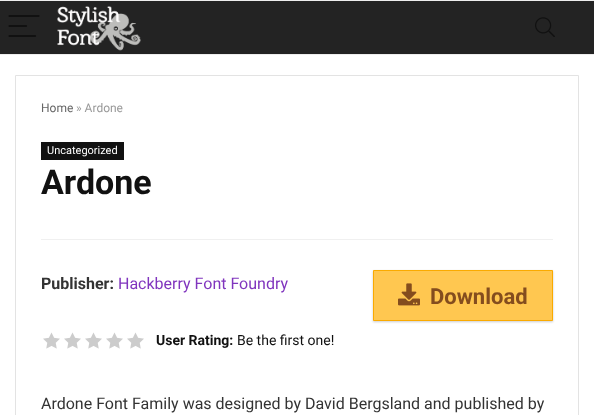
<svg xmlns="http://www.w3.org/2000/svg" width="594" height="415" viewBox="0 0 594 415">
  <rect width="100%" height="100%" fill="#fff"/>
  <path d="M0 0h594v1H0z" fill="#eee"/>
  <path d="M0 54h594v1H0z" fill="#eee"/>
  <path d="M0 1h594v53H0z" fill="#232323"/>
  <path d="M9.5 16H38.5M9.5 26H26M9.5 36H35" fill="none" stroke="#111" stroke-width="2.2" stroke-linecap="round"/>
  <image x="57" y="6" width="84" height="45" href="img/1.png"/>
  <image x="535" y="17" width="20" height="20" href="img/2.png"/>
  <path d="M15.5 75.5h563v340H15.5z" fill="none" stroke="#e3e3e3"/>
  <path d="M41 142h83v18H41z" fill="#111"/>
  <path d="M41 239h512v1H41z" fill="#f0f0f0"/>
  <path d="M373 271h180v51H373z" fill="#00000033" filter="blur(1px)"/>
  <path d="M373.5 270.5h179v50H373.5z" fill="#ffc750" stroke="#faaa00"/>
  <image x="398" y="283" width="22" height="23" href="img/3.png"/>
  <image x="43" y="332" width="17" height="17" href="img/4.png"/>
  <image x="64" y="332" width="17" height="17" href="img/4.png"/>
  <image x="85" y="332" width="17" height="17" href="img/4.png"/>
  <image x="106" y="332" width="17" height="17" href="img/4.png"/>
  <image x="127" y="332" width="17" height="17" href="img/4.png"/>
  <text x="41" y="112" font-family="Roboto" font-size="12" fill="#666">Home</text>
  <text x="76" y="112" font-family="Roboto" font-size="12" fill="#999">» Ardone</text>
  <text x="47" y="154" font-family="Roboto" font-size="11" fill="#fff">Uncategorized</text>
  <text x="41" y="194" font-family="Roboto" font-size="34" font-weight="bold" fill="#111">Ardone</text>
  <text x="41" y="289" font-family="Roboto" font-size="16" font-weight="bold" fill="#333">Publisher:</text>
  <text x="118" y="289" font-family="Roboto" font-size="16" fill="#8035be">Hackberry Font Foundry</text>
  <text x="430" y="304" font-family="Roboto" font-size="22" font-weight="bold" fill="#844d1e">Download</text>
  <text x="156" y="345" font-family="Roboto" font-size="14" font-weight="bold" fill="#111">User Rating:</text>
  <text x="237" y="345" font-family="Roboto" font-size="14" fill="#111">Be the first one!</text>
  <text x="41" y="409" font-family="Roboto" font-size="16" fill="#333">Ardone Font Family was designed by David Bergsland and published by</text>
</svg>
